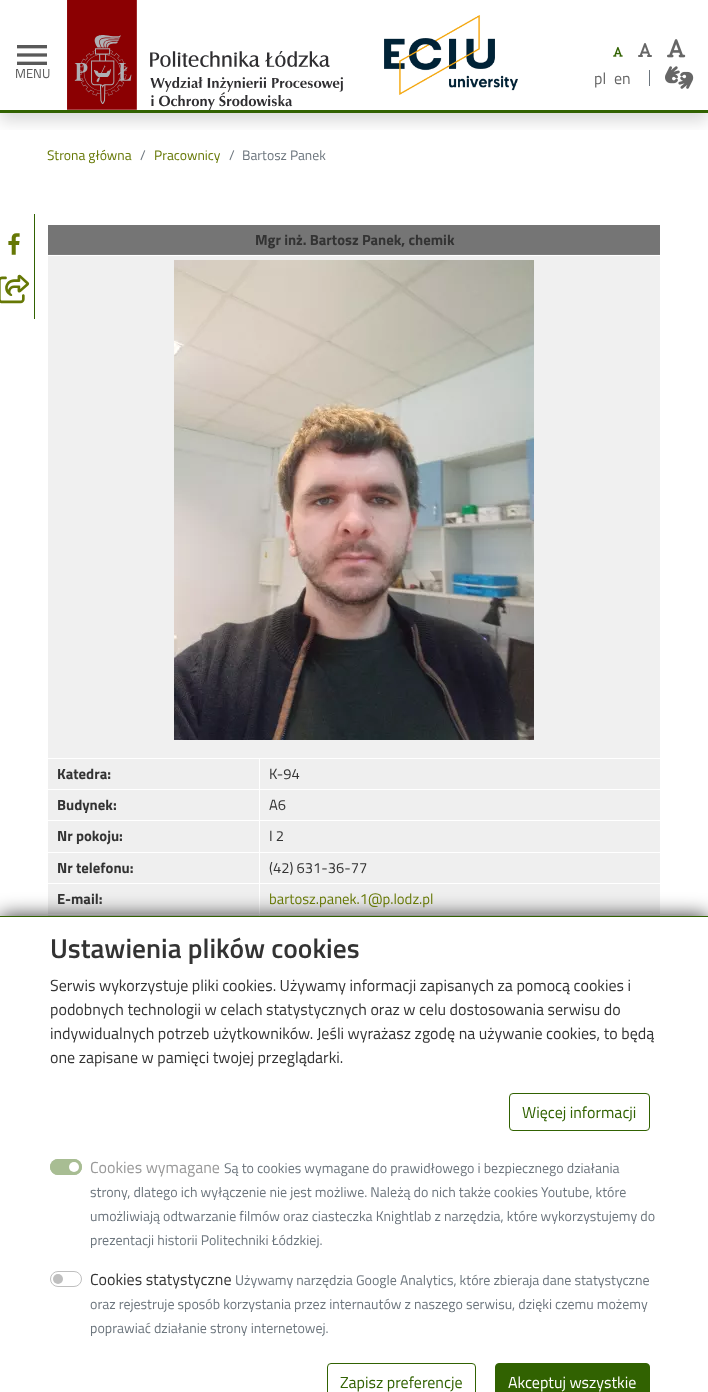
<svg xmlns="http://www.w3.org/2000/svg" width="708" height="1392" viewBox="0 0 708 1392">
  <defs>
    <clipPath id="clip1"><path d="M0 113h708v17H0z"/></clipPath>
  </defs>
  <rect width="100%" height="100%" fill="#fff"/>
  <path d="M48 254h612v1H48z" fill="#7d7d7d"/>
  <g clip-path="url(#clip1)">
    <path d="M0 8h708v113H0z" fill="#00000026" filter="blur(8px)"/>
  </g>
  <path d="M0 110h708v3H0z" fill="#316201"/>
  <image x="17" y="45" width="30" height="20" href="img/1.png"/>
  <image x="67" y="0" width="276" height="110" href="img/2.png"/>
  <image x="384" y="15" width="134" height="80" href="img/3.png"/>
  <image x="613" y="46" width="10" height="11" href="img/4.png"/>
  <image x="638" y="43" width="14" height="14" href="img/5.png"/>
  <image x="667" y="39" width="19" height="19" href="img/6.png"/>
  <path d="M649 70h1v16H649z" fill="#6c757d"/>
  <image x="665" y="66" width="29" height="23" href="img/7.png"/>
  <path d="M34 214h1v105H34z" fill="#316201"/>
  <image x="8" y="233" width="12" height="22" href="img/8.png"/>
  <image x="0" y="274" width="30" height="30" href="img/9.png"/>
  <path d="M48 225h612v29H48z" fill="#757575"/>
  <path d="M48 256h612v502H48z" fill="#f0f0f0"/>
  <image x="174" y="260" width="360" height="480" href="img/10.png"/>
  <path d="M48 915h612v1H48z" fill="#efefef"/>
  <path d="M48 759h612v30H48z" fill="#efefef"/>
  <path d="M48 790h612v30H48z" fill="#efefef"/>
  <path d="M48 821h612v31H48z" fill="#efefef"/>
  <path d="M48 853h612v30H48z" fill="#efefef"/>
  <path d="M48 884h612v30H48z" fill="#efefef"/>
  <path d="M259 758h1v158H259z" fill="#fff"/>
  <path d="M0 916h708v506H0z" fill="#000000cc" filter="blur(10px)"/>
  <path d="M0 917h708v475H0z" fill="#fff"/>
  <path d="M0 916h708v1H0z" fill="#316201"/>
  <rect x="509.5" y="1093.5" width="140" height="37" rx="3.5" fill="none" stroke="#316201"/>
  <rect x="50" y="1159" width="32" height="16" rx="8" fill="#a8bd93"/>
  <circle cx="74" cy="1167" r="5" fill="#fff"/>
  <rect x="50.5" y="1159.5" width="31" height="15" rx="7.5" fill="none" stroke="#a8bd93"/>
  <circle cx="58" cy="1279" r="5" fill="#bfbfbf"/>
  <rect x="50.5" y="1271.5" width="31" height="15" rx="7.5" fill="none" stroke="#bfbfbf"/>
  <rect x="327.5" y="1363.5" width="148" height="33" rx="3.5" fill="none" stroke="#316201"/>
  <rect x="495.5" y="1363.5" width="154" height="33" rx="3.5" fill="#316201" stroke="#316201"/>
  <text x="15" y="78" font-family="Titillium Web" font-size="13" fill="#595959">MENU</text>
  <g font-family="Titillium Web" font-size="16" fill="#666">
    <text x="594" y="84">pl</text>
    <text x="614" y="84">en</text>
  </g>
  <text x="47" y="160" font-family="Titillium Web" font-size="13.75" fill="#667805">Strona główna</text>
  <text x="140" y="160" font-family="Titillium Web" font-size="13.75" fill="#6c757d">/</text>
  <text x="154" y="160" font-family="Titillium Web" font-size="13.75" fill="#667805">Pracownicy</text>
  <g font-family="Titillium Web" font-size="13.75" fill="#6c757d">
    <text x="229" y="160">/</text>
    <text x="242" y="160">Bartosz Panek</text>
  </g>
  <g font-family="Titillium Web" font-size="14.75" font-weight="bold" fill="#333">
    <text x="255" y="245">Mgr inż. Bartosz Panek, chemik</text>
    <text x="57" y="779">Katedra:</text>
  </g>
  <text x="269" y="779" font-family="Titillium Web" font-size="14.75" fill="#333">K-94</text>
  <text x="57" y="810" font-family="Titillium Web" font-size="14.75" font-weight="bold" fill="#333">Budynek:</text>
  <text x="269" y="810" font-family="Titillium Web" font-size="14.75" fill="#333">A6</text>
  <text x="57" y="841" font-family="Titillium Web" font-size="14.75" font-weight="bold" fill="#333">Nr pokoju:</text>
  <text x="269" y="841" font-family="Titillium Web" font-size="14.75" fill="#333">I 2</text>
  <text x="57" y="873" font-family="Titillium Web" font-size="14.75" font-weight="bold" fill="#333">Nr telefonu:</text>
  <text x="269" y="873" font-family="Titillium Web" font-size="14.75" fill="#333">(42) 631-36-77</text>
  <text x="57" y="904" font-family="Titillium Web" font-size="14.75" font-weight="bold" fill="#333">E-mail:</text>
  <text x="269" y="904" font-family="Titillium Web" font-size="14.75" fill="#667805">bartosz.panek.1@p.lodz.pl</text>
  <text x="50" y="958" font-family="Titillium Web" font-size="27.5" font-weight="600" fill="#333">Ustawienia plików cookies</text>
  <g font-family="Titillium Web" font-size="16" fill="#333">
    <text x="50" y="991">Serwis wykorzystuje pliki cookies. Używamy informacji zapisanych za pomocą cookies i</text>
    <text x="50" y="1015">podobnych technologii w celach statystycznych oraz w celu dostosowania serwisu do</text>
    <text x="50" y="1039">indywidualnych potrzeb użytkowników. Jeśli wyrażasz zgodę na używanie cookies, to będą</text>
    <text x="50" y="1063">one zapisane w pamięci twojej przeglądarki.</text>
  </g>
  <text x="522" y="1118" font-family="Titillium Web" font-size="16" fill="#316201">Więcej informacji</text>
  <text x="90" y="1173" font-family="Titillium Web" font-size="16" fill="#999">Cookies wymagane</text>
  <g font-family="Titillium Web" font-size="14" fill="#6c757d">
    <text x="224" y="1173">Są to cookies wymagane do prawidłowego i bezpiecznego działania</text>
    <text x="90" y="1197">strony, dlatego ich wyłączenie nie jest możliwe. Należą do nich także cookies Youtube, które</text>
    <text x="90" y="1221">umożliwiają odtwarzanie filmów oraz ciasteczka Knightlab z narzędzia, które wykorzystujemy do</text>
    <text x="90" y="1245">prezentacji historii Politechniki Łódzkiej.</text>
  </g>
  <text x="90" y="1285" font-family="Titillium Web" font-size="16" fill="#333">Cookies statystyczne</text>
  <g font-family="Titillium Web" font-size="14" fill="#6c757d">
    <text x="235" y="1285">Używamy narzędzia Google Analytics, które zbieraja dane statystyczne</text>
    <text x="90" y="1309">oraz rejestruje sposób korzystania przez internautów z naszego serwisu, dzięki czemu możemy</text>
    <text x="90" y="1333">poprawiać działanie strony internetowej.</text>
  </g>
  <text x="340" y="1388" font-family="Titillium Web" font-size="16" fill="#316201">Zapisz preferencje</text>
  <text x="508" y="1388" font-family="Titillium Web" font-size="16" fill="#fff">Akceptuj wszystkie</text>
</svg>
